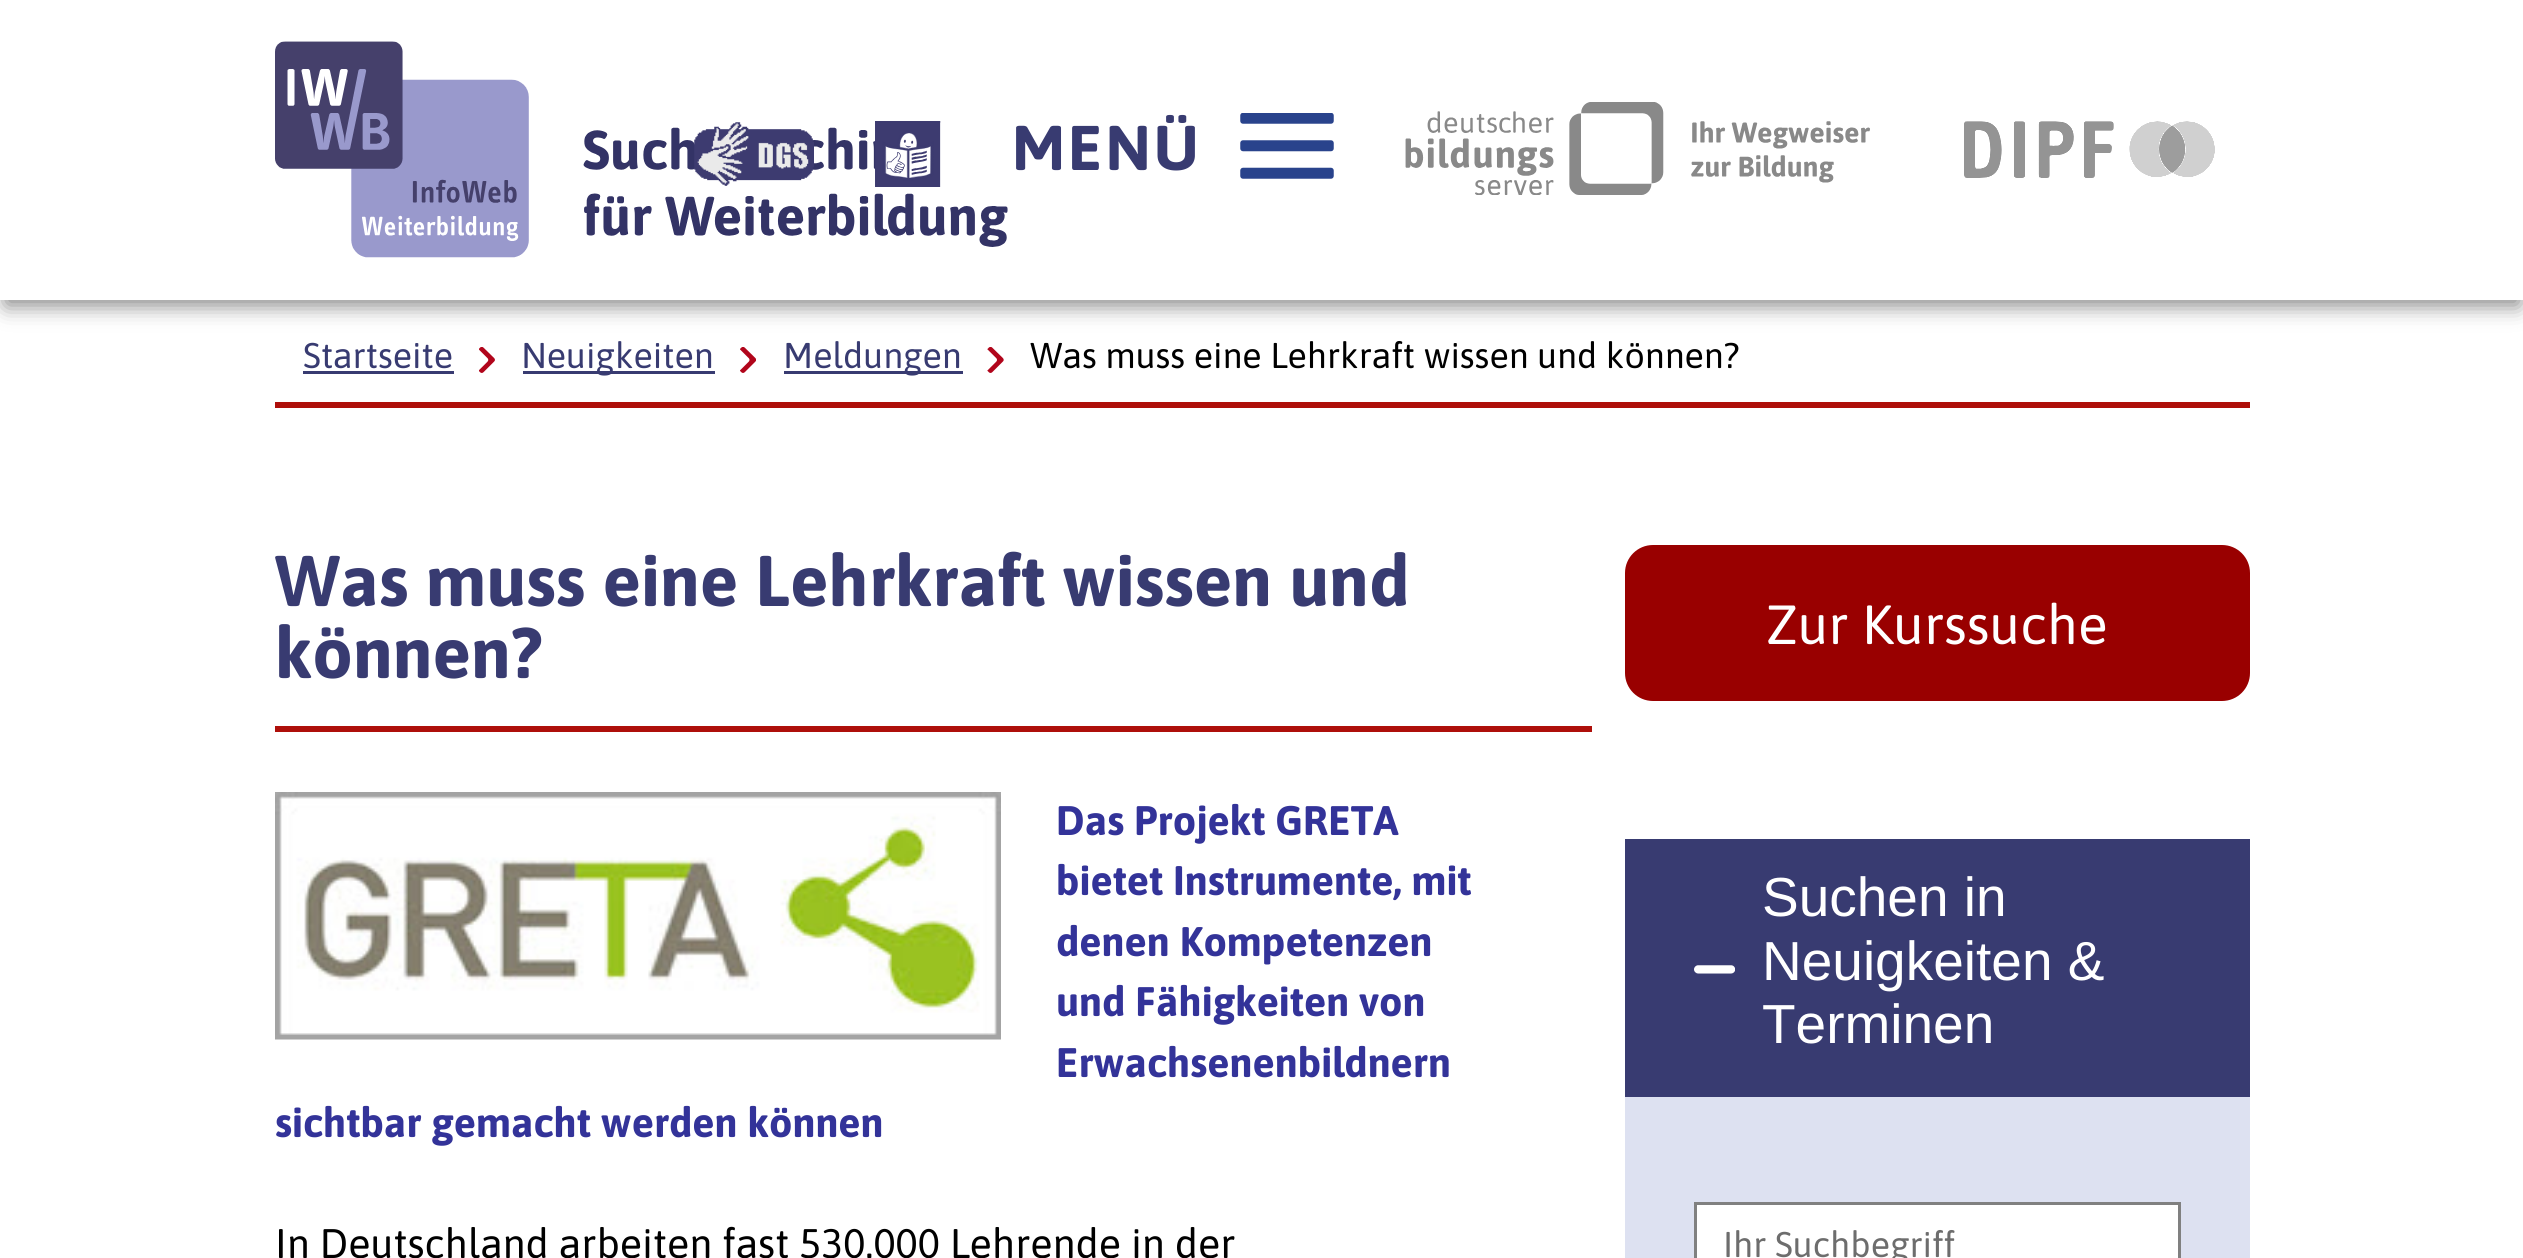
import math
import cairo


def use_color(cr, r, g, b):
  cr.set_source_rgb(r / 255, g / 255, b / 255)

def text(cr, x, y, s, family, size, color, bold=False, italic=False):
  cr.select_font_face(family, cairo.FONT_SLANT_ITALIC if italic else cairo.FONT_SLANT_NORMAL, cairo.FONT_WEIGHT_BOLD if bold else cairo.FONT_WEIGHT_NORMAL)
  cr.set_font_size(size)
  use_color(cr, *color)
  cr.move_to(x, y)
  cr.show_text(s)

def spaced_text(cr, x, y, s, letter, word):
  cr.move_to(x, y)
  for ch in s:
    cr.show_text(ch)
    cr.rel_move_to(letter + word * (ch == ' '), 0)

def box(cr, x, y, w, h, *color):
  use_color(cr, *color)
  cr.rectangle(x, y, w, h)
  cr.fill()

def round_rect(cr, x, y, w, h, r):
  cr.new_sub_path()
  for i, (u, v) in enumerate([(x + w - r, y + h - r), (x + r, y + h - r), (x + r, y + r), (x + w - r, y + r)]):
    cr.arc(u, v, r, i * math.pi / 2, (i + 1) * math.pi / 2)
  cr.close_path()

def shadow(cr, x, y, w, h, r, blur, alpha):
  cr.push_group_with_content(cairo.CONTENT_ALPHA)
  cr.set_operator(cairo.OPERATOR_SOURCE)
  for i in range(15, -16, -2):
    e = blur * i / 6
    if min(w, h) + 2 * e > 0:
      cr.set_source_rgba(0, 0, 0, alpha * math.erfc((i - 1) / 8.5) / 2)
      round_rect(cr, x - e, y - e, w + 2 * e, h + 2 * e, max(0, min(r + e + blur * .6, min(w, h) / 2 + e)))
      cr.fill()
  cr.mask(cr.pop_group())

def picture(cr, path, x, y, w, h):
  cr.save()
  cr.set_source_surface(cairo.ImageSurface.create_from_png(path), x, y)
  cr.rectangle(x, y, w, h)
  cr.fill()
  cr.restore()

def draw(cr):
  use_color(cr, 255, 255, 255)
  cr.paint()
  use_color(cr, 0, 0, 0)
  shadow(cr, 6, 17, 2513, 288, 0, 11, 0.5)
  box(cr, 0, 0, 2523, 300, 255, 255, 255)
  picture(cr, "img_01.png", 275, 41, 733, 217)
  picture(cr, "img_02.png", 694, 122, 120, 64)
  picture(cr, "img_03.png", 875, 121, 66, 66)
  picture(cr, "img_04.png", 1240, 113, 94, 66)
  picture(cr, "img_05.png", 1405, 102, 465, 93)
  picture(cr, "img_06.png", 1964, 121, 251, 57)
  box(cr, 275, 402, 1975, 6, 174, 15, 10)
  box(cr, 303, 371, 151, 3, 56, 59, 113)
  picture(cr, "img_07.png", 479, 347, 16, 26)
  box(cr, 523, 371, 192, 3, 56, 59, 113)
  picture(cr, "img_08.png", 740, 347, 16, 26)
  box(cr, 784, 371, 179, 3, 56, 59, 113)
  picture(cr, "img_09.png", 987, 347, 17, 26)
  box(cr, 275, 726, 1317, 6, 174, 15, 10)
  picture(cr, "img_10.png", 275, 792, 726, 248)
  use_color(cr, 153, 0, 0)
  round_rect(cr, 1628, 548, 619, 150, 25)
  cr.fill_preserve()
  cr.set_line_width(6)
  cr.stroke()
  box(cr, 1625, 839, 625, 258, 56, 59, 113)
  picture(cr, "img_11.png", 1694, 965, 41, 9)
  box(cr, 1625, 1097, 625, 161, 221, 225, 241)
  use_color(cr, 255, 255, 255)
  cr.rectangle(1695.5, 1203.5, 484, 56)
  cr.fill_preserve()
  use_color(cr, 128, 128, 128)
  cr.set_line_width(3)
  cr.stroke()
  cr.select_font_face("Asap", cairo.FONT_SLANT_NORMAL, cairo.FONT_WEIGHT_BOLD)
  cr.set_font_size(63)
  use_color(cr, 56, 59, 113)
  spaced_text(cr, 1012, 170, "MENÜ", 3, 0)
  text(cr, 303, 368, "Startseite", "Asap", 35.75, (56, 59, 113))
  text(cr, 521, 368, "Neuigkeiten", "Asap", 35.75, (56, 59, 113))
  text(cr, 783, 368, "Meldungen", "Asap", 35.75, (56, 59, 113))
  text(cr, 1030, 368, "Was muss eine Lehrkraft wissen und können?", "Asap", 35.75, (0, 0, 0))
  text(cr, 275, 606, "Was muss eine Lehrkraft wissen und", "Asap", 71.5, (56, 59, 113), bold=True)
  text(cr, 275, 678, "können?", "Asap", 71.5, (56, 59, 113), bold=True)
  text(cr, 1056, 835, "Das Projekt GRETA", "Asap", 41.25, (51, 51, 153), bold=True)
  text(cr, 1056, 895, "bietet Instrumente, mit", "Asap", 41.25, (51, 51, 153), bold=True)
  text(cr, 1056, 956, "denen Kompetenzen", "Asap", 41.25, (51, 51, 153), bold=True)
  text(cr, 1056, 1016, "und Fähigkeiten von", "Asap", 41.25, (51, 51, 153), bold=True)
  text(cr, 1056, 1077, "Erwachsenenbildnern", "Asap", 41.25, (51, 51, 153), bold=True)
  text(cr, 275, 1137, "sichtbar gemacht werden können", "Asap", 41.25, (51, 51, 153), bold=True)
  text(cr, 275, 1258, "In Deutschland arbeiten fast 530.000 Lehrende in der", "Asap", 41.25, (0, 0, 0))
  text(cr, 1766, 644, "Zur Kurssuche", "Asap", 55, (255, 255, 255))
  text(cr, 1762, 916, "Suchen in", "Liberation Sans", 55, (255, 255, 255))
  text(cr, 1762, 980, "Neuigkeiten &", "Liberation Sans", 55, (255, 255, 255))
  text(cr, 1762, 1043, "Terminen", "Liberation Sans", 55, (255, 255, 255))
  text(cr, 1723, 1257, "Ihr Suchbegriff", "Asap", 35.75, (109, 109, 109))


surface = cairo.ImageSurface(cairo.FORMAT_RGB24, 2523, 1258)
cr = cairo.Context(surface)
options = cairo.FontOptions()
options.set_hint_metrics(cairo.HINT_METRICS_OFF)
options.set_hint_style(cairo.HINT_STYLE_NONE)
cr.set_font_options(options)
cr.set_miter_limit(4)
draw(cr)
surface.write_to_png("out.png")
